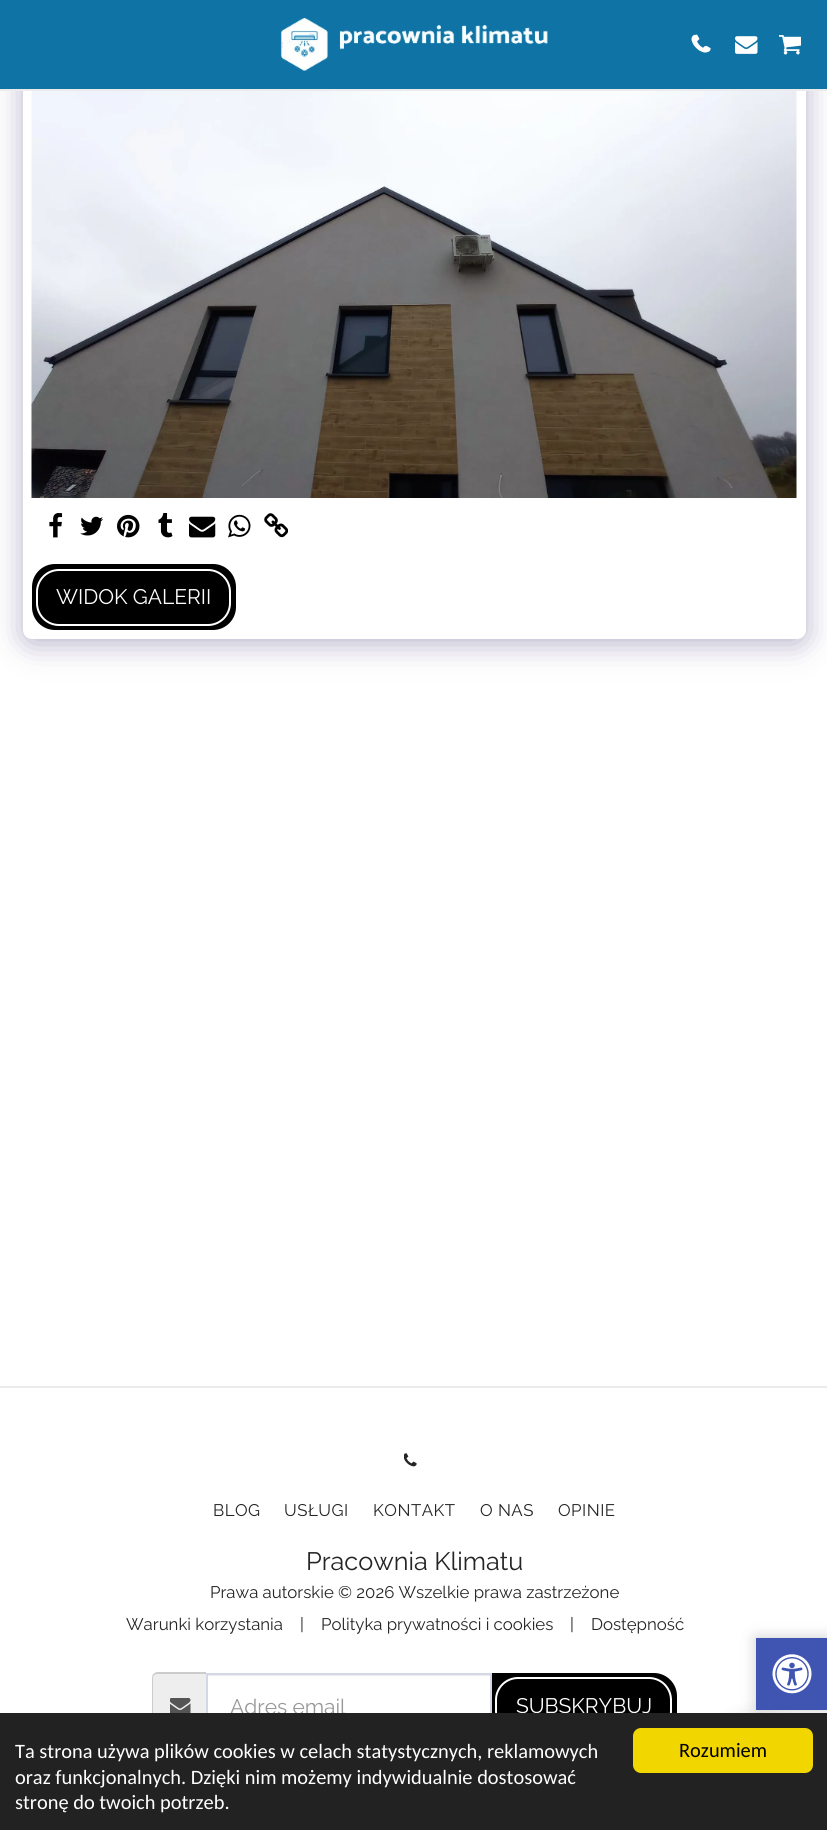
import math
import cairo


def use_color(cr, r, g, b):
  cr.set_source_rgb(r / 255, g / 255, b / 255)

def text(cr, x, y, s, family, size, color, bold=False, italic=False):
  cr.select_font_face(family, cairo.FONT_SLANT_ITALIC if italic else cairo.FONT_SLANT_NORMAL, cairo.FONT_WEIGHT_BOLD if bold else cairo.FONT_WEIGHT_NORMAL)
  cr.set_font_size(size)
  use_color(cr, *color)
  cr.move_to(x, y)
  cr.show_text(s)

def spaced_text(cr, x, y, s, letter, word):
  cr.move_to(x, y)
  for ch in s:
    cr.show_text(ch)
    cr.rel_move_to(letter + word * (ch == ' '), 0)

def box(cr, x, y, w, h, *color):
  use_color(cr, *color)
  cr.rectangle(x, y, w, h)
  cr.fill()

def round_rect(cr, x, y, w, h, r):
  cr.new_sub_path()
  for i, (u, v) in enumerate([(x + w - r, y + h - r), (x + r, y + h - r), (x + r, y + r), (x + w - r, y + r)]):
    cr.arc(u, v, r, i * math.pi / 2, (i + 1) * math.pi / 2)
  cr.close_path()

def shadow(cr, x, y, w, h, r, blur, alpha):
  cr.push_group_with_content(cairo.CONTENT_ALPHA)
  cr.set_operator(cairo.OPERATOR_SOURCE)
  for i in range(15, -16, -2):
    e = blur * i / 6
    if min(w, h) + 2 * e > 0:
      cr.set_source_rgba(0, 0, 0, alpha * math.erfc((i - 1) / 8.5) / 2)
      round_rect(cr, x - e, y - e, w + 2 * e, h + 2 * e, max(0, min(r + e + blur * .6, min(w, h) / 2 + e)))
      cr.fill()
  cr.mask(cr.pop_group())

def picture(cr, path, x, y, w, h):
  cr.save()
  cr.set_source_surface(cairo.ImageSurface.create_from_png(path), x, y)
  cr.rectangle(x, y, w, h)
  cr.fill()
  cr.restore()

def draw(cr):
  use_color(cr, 255, 255, 255)
  cr.paint()
  use_color(cr, 77, 63, 122)
  shadow(cr, 23, 63, 783, 581, 9, 15, 0.4)
  use_color(cr, 255, 255, 255)
  round_rect(cr, 23, 59, 783, 580, 9)
  cr.fill()
  box(cr, 0, 0, 827, 89, 15, 115, 165)
  box(cr, 0, 89, 827, 2, 235, 235, 235)
  picture(cr, "img_01.png", 280, 18, 268, 53)
  picture(cr, "img_02.png", 695, 34, 16, 19)
  picture(cr, "img_03.png", 691, 34, 18, 19)
  picture(cr, "img_04.png", 735, 36, 23, 18)
  picture(cr, "img_05.png", 779, 35, 22, 20)
  picture(cr, "img_06.png", 31, 91, 766, 407)
  picture(cr, "img_07.png", 49, 513, 14, 25)
  picture(cr, "img_08.png", 80, 516, 24, 20)
  picture(cr, "img_09.png", 117, 514, 23, 24)
  picture(cr, "img_10.png", 158, 513, 15, 25)
  picture(cr, "img_11.png", 189, 516, 27, 22)
  picture(cr, "img_12.png", 228, 514, 23, 24)
  picture(cr, "img_13.png", 264, 513, 24, 25)
  use_color(cr, 0, 0, 0)
  round_rect(cr, 33, 565, 202, 64, 22)
  cr.fill_preserve()
  cr.stroke()
  round_rect(cr, 37, 570, 193, 55, 22)
  use_color(cr, 255, 255, 255)
  cr.stroke()
  box(cr, 0, 1386, 827, 2, 235, 235, 235)
  picture(cr, "img_14.png", 404, 1453, 13, 14)
  use_color(cr, 238, 238, 238)
  cr.new_path()
  cr.move_to(158, 1674)
  cr.line_to(206, 1674)
  cr.line_to(206, 1737)
  cr.line_to(158, 1737)
  cr.curve_to(155, 1737, 153, 1735, 153, 1732)
  cr.line_to(153, 1679)
  cr.curve_to(153, 1676, 155, 1674, 158, 1674)
  cr.close_path()
  cr.fill()
  use_color(cr, 204, 204, 204)
  cr.set_fill_rule(cairo.FILL_RULE_EVEN_ODD)
  cr.new_path()
  cr.move_to(158, 1672)
  cr.line_to(206, 1672)
  cr.line_to(206, 1738)
  cr.line_to(158, 1738)
  cr.curve_to(154, 1738, 152, 1736, 152, 1732)
  cr.line_to(152, 1678)
  cr.curve_to(152, 1675, 154, 1672, 158, 1672)
  cr.close_path()
  cr.move_to(158, 1674)
  cr.line_to(206, 1674)
  cr.line_to(206, 1737)
  cr.line_to(158, 1737)
  cr.curve_to(155, 1737, 153, 1735, 153, 1732)
  cr.line_to(153, 1678)
  cr.curve_to(153, 1676, 155, 1674, 158, 1674)
  cr.close_path()
  cr.fill()
  picture(cr, "img_15.png", 170, 1698, 21, 15)
  box(cr, 207, 1675, 284, 1, 236, 236, 236)
  use_color(cr, 0, 0, 0)
  cr.new_path()
  cr.move_to(492, 1674)
  cr.line_to(654, 1674)
  cr.curve_to(666, 1674, 676, 1684, 676, 1696)
  cr.line_to(676, 1716)
  cr.curve_to(676, 1728, 666, 1738, 654, 1738)
  cr.line_to(492, 1738)
  cr.close_path()
  cr.fill_preserve()
  cr.stroke()
  cr.rectangle(207, 1674, 284, 64)
  use_color(cr, 212, 215, 229)
  cr.stroke()
  round_rect(cr, 496, 1678, 175, 55, 22)
  use_color(cr, 255, 255, 255)
  cr.stroke()
  use_color(cr, 0, 0, 0)
  shadow(cr, 716, 1725, 82, 83, 41, 11, 0.35)
  shadow(cr, 756, 1638, 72, 72, 0, 7.5, 0.2)
  box(cr, 756, 1638, 71, 72, 64, 84, 178)
  picture(cr, "img_16.png", 772, 1654, 40, 40)
  text(cr, 56, 604, "WIDOK GALERII", "Raleway", 21, (255, 255, 255))
  cr.set_font_size(16.8)
  use_color(cr, 37, 37, 37)
  spaced_text(cr, 213, 1516, "BLOG", 0.5, 0)
  spaced_text(cr, 284, 1516, "USŁUGI", 0.5, 0)
  spaced_text(cr, 373, 1516, "KONTAKT", 0.5, 0)
  spaced_text(cr, 480, 1516, "O NAS", 0.5, 0)
  spaced_text(cr, 558, 1516, "OPINIE", 0.5, 0)
  text(cr, 306, 1570, "Pracownia Klimatu", "Raleway", 25.25, (37, 37, 37))
  text(cr, 210, 1598, "Prawa autorskie © 2026 Wszelkie prawa zastrzeżone", "Raleway", 16.8, (37, 37, 37))
  text(cr, 126, 1630, "Warunki korzystania", "Raleway", 16.8, (37, 37, 37))
  text(cr, 300, 1630, "|", "Raleway", 16.8, (37, 37, 37))
  text(cr, 321, 1630, "Polityka prywatności i cookies", "Raleway", 16.8, (37, 37, 37))
  text(cr, 570, 1630, "|", "Raleway", 16.8, (37, 37, 37))
  text(cr, 591, 1630, "Dostępność", "Raleway", 16.8, (37, 37, 37))
  text(cr, 230, 1714, "Adres email", "Raleway", 21, (153, 153, 153))
  text(cr, 516, 1713, "SUBSKRYBUJ", "Raleway", 21, (255, 255, 255))
  box(cr, 0, 1713, 827, 117, 34, 34, 34)
  text(cr, 15, 1758, "Ta strona używa plików cookies w celach statystycznych, reklamowych", "Carlito", 20.4, (255, 255, 255))
  text(cr, 15, 1784, "oraz funkcjonalnych. Dzięki nim możemy indywidualnie dostosować", "Carlito", 20.4, (255, 255, 255))
  text(cr, 15, 1809, "stronę do twoich potrzeb.", "Carlito", 20.4, (255, 255, 255))
  use_color(cr, 241, 214, 0)
  round_rect(cr, 633, 1728, 180, 45, 8)
  cr.fill()
  text(cr, 679, 1757, "Rozumiem", "Carlito", 20.4, (0, 0, 0))


surface = cairo.ImageSurface(cairo.FORMAT_RGB24, 827, 1830)
cr = cairo.Context(surface)
options = cairo.FontOptions()
options.set_hint_metrics(cairo.HINT_METRICS_OFF)
options.set_hint_style(cairo.HINT_STYLE_NONE)
cr.set_font_options(options)
cr.set_miter_limit(4)
draw(cr)
surface.write_to_png("out.png")
